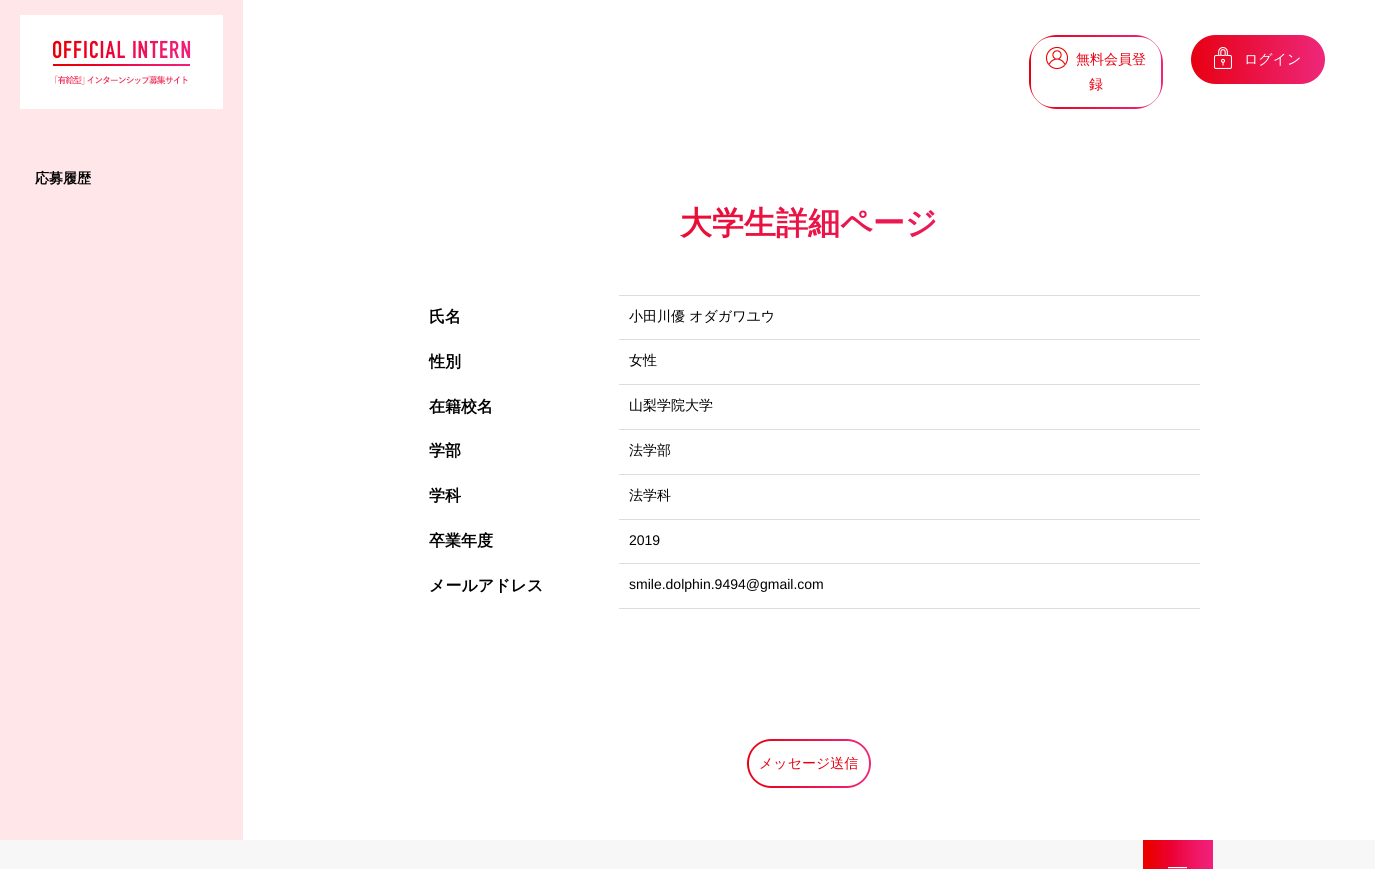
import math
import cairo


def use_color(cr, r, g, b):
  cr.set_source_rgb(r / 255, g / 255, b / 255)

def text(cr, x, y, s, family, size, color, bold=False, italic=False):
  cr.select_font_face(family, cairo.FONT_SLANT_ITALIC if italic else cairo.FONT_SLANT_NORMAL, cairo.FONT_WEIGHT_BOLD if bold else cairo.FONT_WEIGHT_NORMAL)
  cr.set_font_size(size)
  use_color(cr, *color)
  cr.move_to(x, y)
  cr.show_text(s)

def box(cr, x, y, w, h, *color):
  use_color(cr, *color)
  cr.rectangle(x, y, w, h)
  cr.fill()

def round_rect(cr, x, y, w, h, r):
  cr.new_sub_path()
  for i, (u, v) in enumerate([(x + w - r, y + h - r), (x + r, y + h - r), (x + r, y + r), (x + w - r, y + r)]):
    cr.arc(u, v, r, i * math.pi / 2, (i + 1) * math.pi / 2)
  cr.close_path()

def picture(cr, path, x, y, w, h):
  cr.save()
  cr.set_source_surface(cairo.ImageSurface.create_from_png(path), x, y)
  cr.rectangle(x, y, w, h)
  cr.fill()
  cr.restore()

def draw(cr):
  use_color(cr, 247, 247, 247)
  cr.paint()
  box(cr, 243, 0, 1132, 840, 255, 255, 255)
  box(cr, 0, 0, 243, 840, 255, 231, 233)
  picture(cr, "img_01.png", 20, 15, 203, 94)
  gradient = cairo.LinearGradient(1029, 72, 1163, 72)
  gradient.add_color_stop_rgba(0, 0.906, 0, 0.071, 1)
  gradient.add_color_stop_rgba(1, 0.933, 0.153, 0.478, 1)
  cr.set_source(gradient)
  round_rect(cr, 1029, 35, 134, 74, 28)
  cr.fill()
  use_color(cr, 255, 255, 255)
  round_rect(cr, 1031, 37, 130, 70, 22)
  cr.fill()
  picture(cr, "img_02.png", 1046, 47, 22, 22)
  gradient = cairo.LinearGradient(1191, 60, 1325, 59)
  gradient.add_color_stop_rgba(0, 0.906, 0, 0.071, 1)
  gradient.add_color_stop_rgba(1, 0.933, 0.153, 0.478, 1)
  cr.set_source(gradient)
  round_rect(cr, 1191, 35, 134, 49, 24.5)
  cr.fill()
  picture(cr, "img_03.png", 1214, 47, 18, 22)
  box(cr, 619, 295, 581, 1, 221, 221, 221)
  box(cr, 619, 339, 581, 1, 221, 221, 221)
  box(cr, 619, 384, 581, 1, 221, 221, 221)
  box(cr, 619, 429, 581, 1, 221, 221, 221)
  box(cr, 619, 474, 581, 1, 221, 221, 221)
  box(cr, 619, 519, 581, 1, 221, 221, 221)
  box(cr, 619, 563, 581, 1, 221, 221, 221)
  box(cr, 619, 608, 581, 1, 221, 221, 221)
  gradient = cairo.LinearGradient(747, 764, 871, 764)
  gradient.add_color_stop_rgba(0, 0.906, 0, 0.071, 1)
  gradient.add_color_stop_rgba(1, 0.933, 0.153, 0.478, 1)
  cr.set_source(gradient)
  round_rect(cr, 747, 739, 124, 49, 24.5)
  cr.fill()
  use_color(cr, 255, 255, 255)
  round_rect(cr, 749, 741, 120, 45, 22)
  cr.fill()
  picture(cr, "img_04.png", 1143, 840, 70, 29)
  text(cr, 1076, 64, "無料会員登", "WenQuanYi Zen Hei Medium", 14, (231, 0, 18))
  text(cr, 1089, 89, "録", "WenQuanYi Zen Hei Medium", 14, (231, 0, 18))
  text(cr, 1244, 64, "ログイン", "WenQuanYi Zen Hei Medium", 14, (255, 255, 255))
  text(cr, 35, 183, "応募履歴", "WenQuanYi Zen Hei", 14, (0, 0, 0), bold=True)
  cr.set_font_size(32)
  gradient = cairo.LinearGradient(419, 224, 1199, 224)
  gradient.add_color_stop_rgba(0, 0.906, 0, 0.071, 1)
  gradient.add_color_stop_rgba(1, 0.933, 0.153, 0.478, 1)
  cr.set_source(gradient)
  cr.move_to(680, 234)
  cr.show_text("大学生詳細ページ")
  text(cr, 429, 322, "氏名", "WenQuanYi Zen Hei", 16, (0, 0, 0), bold=True)
  text(cr, 629, 321, "小田川優 オダガワユウ", "WenQuanYi Zen Hei Medium", 14, (0, 0, 0))
  text(cr, 429, 367, "性別", "WenQuanYi Zen Hei", 16, (0, 0, 0), bold=True)
  text(cr, 629, 365, "女性", "WenQuanYi Zen Hei Medium", 14, (0, 0, 0))
  text(cr, 429, 412, "在籍校名", "WenQuanYi Zen Hei", 16, (0, 0, 0), bold=True)
  text(cr, 629, 410, "山梨学院大学", "WenQuanYi Zen Hei Medium", 14, (0, 0, 0))
  text(cr, 429, 456, "学部", "WenQuanYi Zen Hei", 16, (0, 0, 0), bold=True)
  text(cr, 629, 455, "法学部", "WenQuanYi Zen Hei Medium", 14, (0, 0, 0))
  text(cr, 429, 501, "学科", "WenQuanYi Zen Hei", 16, (0, 0, 0), bold=True)
  text(cr, 629, 500, "法学科", "WenQuanYi Zen Hei Medium", 14, (0, 0, 0))
  text(cr, 429, 546, "卒業年度", "WenQuanYi Zen Hei", 16, (0, 0, 0), bold=True)
  text(cr, 629, 545, "2019", "Liberation Sans", 14, (0, 0, 0))
  text(cr, 429, 591, "メールアドレス", "WenQuanYi Zen Hei", 16, (0, 0, 0), bold=True)
  text(cr, 629, 589, "smile.dolphin.9494@gmail.com", "Liberation Sans", 14, (0, 0, 0))
  text(cr, 759, 768, "メッセージ送信", "WenQuanYi Zen Hei Medium", 14, (231, 0, 18))


surface = cairo.ImageSurface(cairo.FORMAT_RGB24, 1375, 869)
cr = cairo.Context(surface)
options = cairo.FontOptions()
options.set_hint_metrics(cairo.HINT_METRICS_OFF)
options.set_hint_style(cairo.HINT_STYLE_NONE)
cr.set_font_options(options)
cr.set_miter_limit(4)
draw(cr)
surface.write_to_png("out.png")
